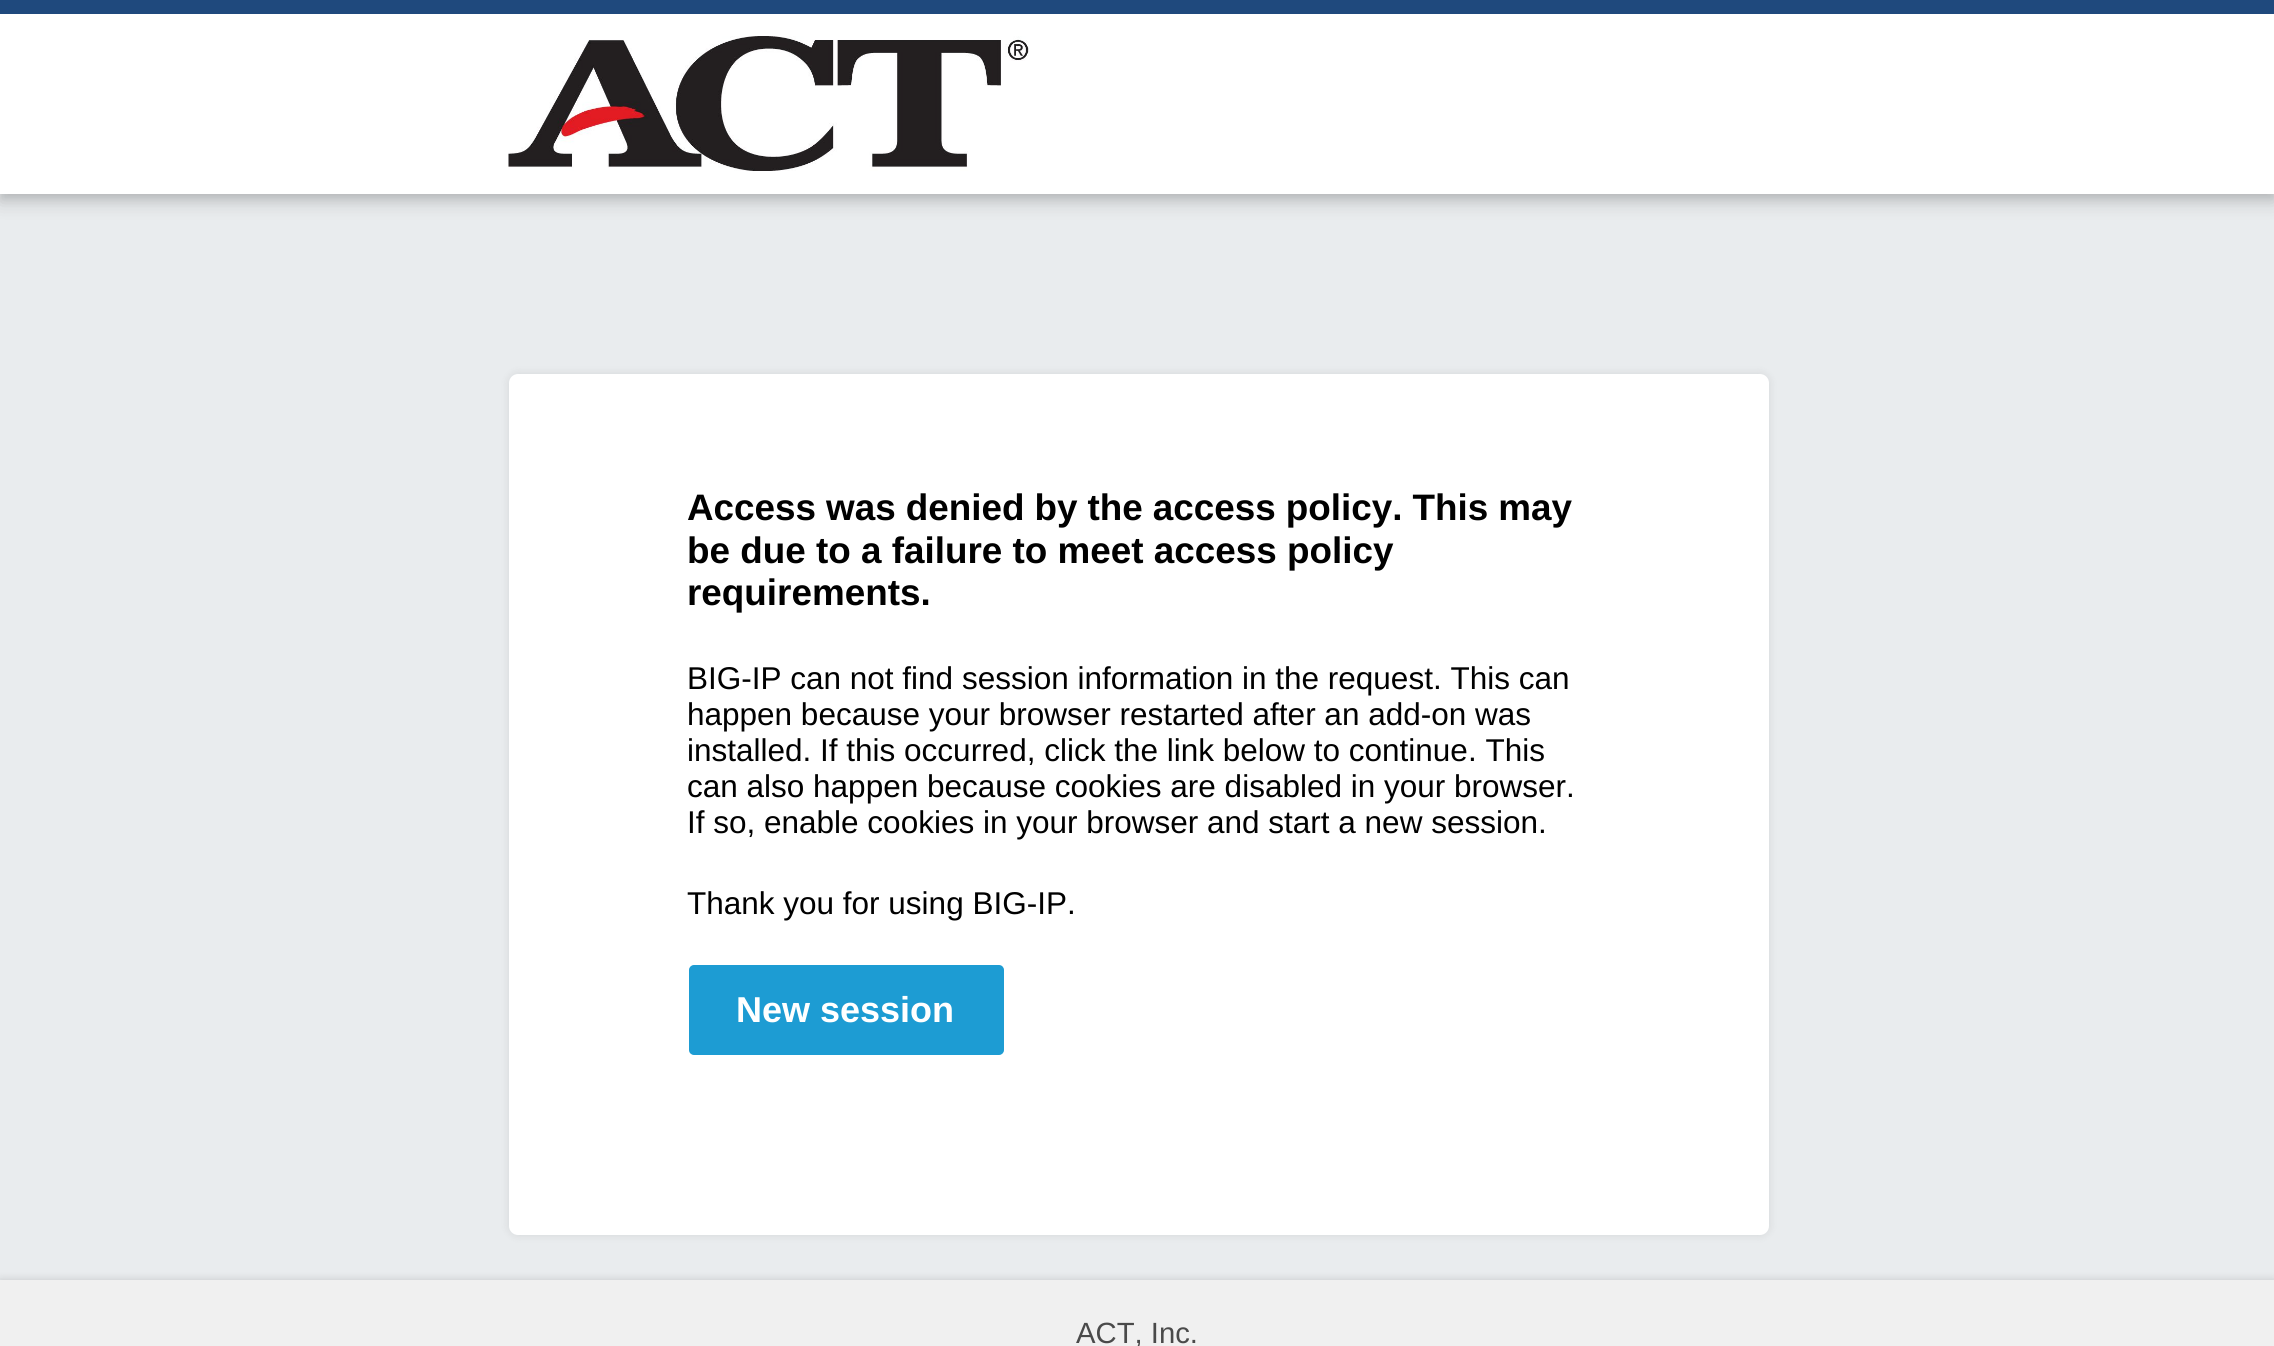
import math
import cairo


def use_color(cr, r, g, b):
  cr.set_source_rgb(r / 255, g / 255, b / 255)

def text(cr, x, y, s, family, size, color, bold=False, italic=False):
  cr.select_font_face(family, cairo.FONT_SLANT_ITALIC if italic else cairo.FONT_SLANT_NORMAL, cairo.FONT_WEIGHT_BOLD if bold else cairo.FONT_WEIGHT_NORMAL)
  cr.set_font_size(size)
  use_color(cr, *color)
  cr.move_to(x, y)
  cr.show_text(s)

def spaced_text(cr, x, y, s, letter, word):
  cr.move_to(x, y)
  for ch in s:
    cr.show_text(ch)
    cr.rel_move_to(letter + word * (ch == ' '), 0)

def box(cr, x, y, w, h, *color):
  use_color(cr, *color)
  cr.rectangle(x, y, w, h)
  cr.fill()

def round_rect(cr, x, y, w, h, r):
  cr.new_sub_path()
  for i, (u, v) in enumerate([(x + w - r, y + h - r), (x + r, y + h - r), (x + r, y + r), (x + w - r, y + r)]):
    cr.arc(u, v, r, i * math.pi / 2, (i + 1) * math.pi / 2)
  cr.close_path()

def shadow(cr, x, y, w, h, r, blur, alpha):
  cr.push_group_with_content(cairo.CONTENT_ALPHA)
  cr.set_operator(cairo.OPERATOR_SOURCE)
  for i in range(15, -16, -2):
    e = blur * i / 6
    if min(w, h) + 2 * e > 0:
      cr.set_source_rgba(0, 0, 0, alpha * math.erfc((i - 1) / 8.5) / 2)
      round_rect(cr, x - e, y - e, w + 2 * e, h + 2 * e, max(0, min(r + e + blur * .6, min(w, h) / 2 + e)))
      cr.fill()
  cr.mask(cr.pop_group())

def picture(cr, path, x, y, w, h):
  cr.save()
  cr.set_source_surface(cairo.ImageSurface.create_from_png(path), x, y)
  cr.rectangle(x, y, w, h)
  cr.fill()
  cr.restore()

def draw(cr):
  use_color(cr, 233, 236, 238)
  cr.paint()
  use_color(cr, 0, 0, 0)
  shadow(cr, 0, 9, 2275, 194, 0, 9, 0.15)
  shadow(cr, 0, 5, 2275, 193, 0, 4.5, 0.1)
  box(cr, 0, 14, 2274, 180, 255, 255, 255)
  box(cr, 0, 0, 2274, 14, 31, 73, 125)
  picture(cr, "img_01.png", 508, 36, 521, 135)
  use_color(cr, 0, 0, 0)
  shadow(cr, 509, 374, 1260, 861, 9, 4.5, 0.1)
  use_color(cr, 255, 255, 255)
  round_rect(cr, 509, 374, 1260, 861, 9)
  cr.fill()
  use_color(cr, 29, 156, 211)
  round_rect(cr, 690, 966, 313, 88, 4)
  cr.fill_preserve()
  cr.stroke()
  use_color(cr, 0, 0, 0)
  shadow(cr, 0, 1280, 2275, 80, 0, 4.5, 0.15)
  box(cr, 0, 1280, 2274, 66, 240, 240, 240)
  cr.select_font_face("Liberation Sans", cairo.FONT_SLANT_NORMAL, cairo.FONT_WEIGHT_BOLD)
  cr.set_font_size(36.85)
  use_color(cr, 0, 0, 0)
  spaced_text(cr, 687, 520, "Access was denied by the access policy. This may", 0, -0.25)
  text(cr, 687, 563, "be due to a failure to meet access policy", "Liberation Sans", 36.85, (0, 0, 0), bold=True)
  text(cr, 687, 605, "requirements.", "Liberation Sans", 36.85, (0, 0, 0), bold=True)
  text(cr, 687, 689, "BIG-IP can not find session information in the request. This can", "Liberation Sans", 31.5, (0, 0, 0))
  text(cr, 687, 725, "happen because your browser restarted after an add-on was", "Liberation Sans", 31.5, (0, 0, 0))
  text(cr, 687, 761, "installed. If this occurred, click the link below to continue. This", "Liberation Sans", 31.5, (0, 0, 0))
  text(cr, 687, 797, "can also happen because cookies are disabled in your browser.", "Liberation Sans", 31.5, (0, 0, 0))
  text(cr, 687, 833, "If so, enable cookies in your browser and start a new session.", "Liberation Sans", 31.5, (0, 0, 0))
  text(cr, 687, 914, "Thank you for using BIG-IP.", "Liberation Sans", 31.5, (0, 0, 0))
  text(cr, 736, 1022, "New session", "Liberation Sans", 36, (255, 255, 255), bold=True)
  text(cr, 1076, 1343, "ACT, Inc.", "Liberation Sans", 29.25, (74, 74, 74))


surface = cairo.ImageSurface(cairo.FORMAT_RGB24, 2274, 1346)
cr = cairo.Context(surface)
options = cairo.FontOptions()
options.set_hint_metrics(cairo.HINT_METRICS_OFF)
options.set_hint_style(cairo.HINT_STYLE_NONE)
cr.set_font_options(options)
cr.set_miter_limit(4)
draw(cr)
surface.write_to_png("out.png")
